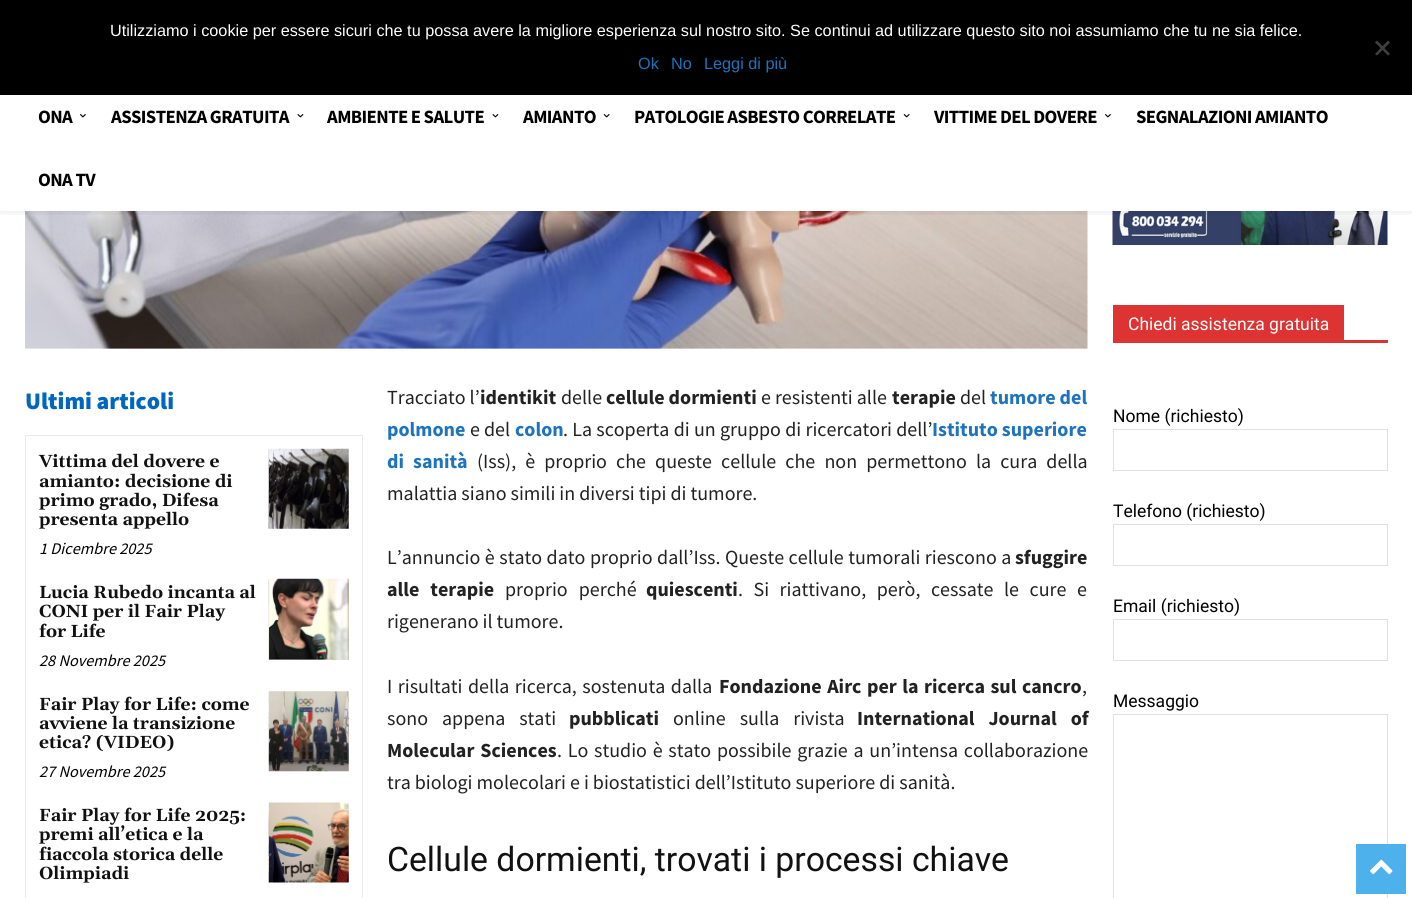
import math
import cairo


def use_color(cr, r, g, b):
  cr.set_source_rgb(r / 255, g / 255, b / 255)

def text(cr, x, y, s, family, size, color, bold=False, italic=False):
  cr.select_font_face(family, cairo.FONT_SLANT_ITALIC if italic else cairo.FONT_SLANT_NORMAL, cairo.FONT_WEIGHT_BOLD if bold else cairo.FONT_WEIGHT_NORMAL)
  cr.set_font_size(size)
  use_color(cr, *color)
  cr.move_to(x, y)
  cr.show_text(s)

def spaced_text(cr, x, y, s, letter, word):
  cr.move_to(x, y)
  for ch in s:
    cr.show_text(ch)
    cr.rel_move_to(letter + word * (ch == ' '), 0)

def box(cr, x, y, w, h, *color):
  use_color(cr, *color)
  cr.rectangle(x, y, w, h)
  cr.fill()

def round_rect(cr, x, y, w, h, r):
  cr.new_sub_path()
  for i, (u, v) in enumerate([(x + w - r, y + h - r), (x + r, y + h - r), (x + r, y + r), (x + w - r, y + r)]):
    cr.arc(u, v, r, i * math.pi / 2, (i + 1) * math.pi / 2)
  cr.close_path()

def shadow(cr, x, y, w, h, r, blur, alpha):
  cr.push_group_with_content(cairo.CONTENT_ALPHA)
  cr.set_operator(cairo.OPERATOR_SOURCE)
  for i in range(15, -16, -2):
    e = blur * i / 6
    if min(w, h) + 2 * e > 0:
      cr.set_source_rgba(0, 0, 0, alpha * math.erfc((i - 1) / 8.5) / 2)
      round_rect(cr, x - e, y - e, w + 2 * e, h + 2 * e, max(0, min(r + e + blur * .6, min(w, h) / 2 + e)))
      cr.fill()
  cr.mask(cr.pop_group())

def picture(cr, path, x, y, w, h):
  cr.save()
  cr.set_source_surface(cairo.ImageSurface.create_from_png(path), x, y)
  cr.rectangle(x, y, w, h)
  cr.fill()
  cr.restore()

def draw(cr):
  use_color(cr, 255, 255, 255)
  cr.paint()
  picture(cr, "img_04.png", 25, 211, 1063, 138)
  picture(cr, "img_09.png", 1112, 211, 276, 34)
  cr.save()
  cr.rectangle(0, 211, 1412, 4)
  cr.clip()
  use_color(cr, 0, 0, 0)
  shadow(cr, 0, 3, 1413, 211, 0, 2.5, 0.06)
  cr.restore()
  box(cr, 0, 0, 1412, 95, 0, 0, 0)
  use_color(cr, 64, 64, 64)
  cr.new_path()
  cr.move_to(1388, 40.5)
  cr.line_to(1390, 42.5)
  cr.line_to(1377, 55.5)
  cr.line_to(1375, 54)
  cr.close_path()
  cr.fill()
  cr.new_path()
  cr.move_to(1375, 42.5)
  cr.line_to(1377, 40.5)
  cr.line_to(1390, 54)
  cr.line_to(1388, 55.5)
  cr.close_path()
  cr.fill()
  picture(cr, "img_01.png", 80, 114, 6, 4)
  picture(cr, "img_02.png", 297, 114, 7, 4)
  picture(cr, "img_02.png", 492, 114, 7, 4)
  picture(cr, "img_03.png", 603, 114, 7, 4)
  picture(cr, "img_03.png", 903, 114, 7, 4)
  picture(cr, "img_01.png", 1105, 114, 6, 4)
  cr.rectangle(25.5, 435.5, 337, 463)
  use_color(cr, 234, 234, 234)
  cr.set_line_width(1)
  cr.stroke()
  picture(cr, "img_05.png", 268, 448, 81, 81)
  picture(cr, "img_06.png", 268, 578, 81, 82)
  picture(cr, "img_07.png", 268, 691, 81, 81)
  picture(cr, "img_08.png", 268, 802, 81, 81)
  box(cr, 1113, 340, 275, 3, 221, 51, 51)
  box(cr, 1113, 305, 231, 35, 221, 51, 51)
  cr.rectangle(1113.5, 429.5, 274, 41)
  use_color(cr, 225, 225, 225)
  cr.stroke()
  cr.rectangle(1113.5, 524.5, 274, 41)
  cr.stroke()
  cr.rectangle(1113.5, 619.5, 274, 41)
  cr.stroke()
  cr.rectangle(1113.5, 714.5, 274, 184)
  cr.stroke()
  box(cr, 1356, 844, 50, 50, 77, 178, 236)
  picture(cr, "img_10.png", 1370, 859, 23, 16)
  text(cr, 110, 36, "Utilizziamo i cookie per essere sicuri che tu possa avere la migliore esperienza sul nostro sito. Se continui ad utilizzare questo sito noi assumiamo che tu ne sia felice.", "Liberation Sans", 16.25, (255, 255, 255))
  text(cr, 638, 69, "Ok", "Liberation Sans", 16.25, (30, 115, 190))
  text(cr, 671, 69, "No", "Liberation Sans", 16.25, (30, 115, 190))
  text(cr, 704, 69, "Leggi di più", "Liberation Sans", 16.25, (30, 115, 190))
  cr.select_font_face("Source Sans Pro", cairo.FONT_SLANT_NORMAL, cairo.FONT_WEIGHT_BOLD)
  cr.set_font_size(18.75)
  use_color(cr, 0, 0, 0)
  spaced_text(cr, 38, 123, "ONA", -0.6, 0)
  spaced_text(cr, 111, 123, "ASSISTENZA GRATUITA", -0.6, 0)
  spaced_text(cr, 327, 123, "AMBIENTE E SALUTE", -0.6, 0)
  spaced_text(cr, 523, 123, "AMIANTO", -0.6, 0)
  spaced_text(cr, 634, 123, "PATOLOGIE ASBESTO CORRELATE", -0.6, 0)
  spaced_text(cr, 934, 123, "VITTIME DEL DOVERE", -0.6, 0)
  spaced_text(cr, 1136, 123, "SEGNALAZIONI AMIANTO", -0.6, 0)
  spaced_text(cr, 38, 186, "ONA TV", -0.6, 0)
  text(cr, 25, 409, "Ultimi articoli", "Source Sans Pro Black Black", 23.75, (0, 102, 191))
  text(cr, 39, 467, "Vittima del dovere e", "Gelasio", 17.5, (17, 17, 17), bold=True)
  text(cr, 39, 487, "amianto: decisione di", "Gelasio", 17.5, (17, 17, 17), bold=True)
  text(cr, 39, 506, "primo grado, Difesa", "Gelasio", 17.5, (17, 17, 17), bold=True)
  text(cr, 39, 525, "presenta appello", "Gelasio", 17.5, (17, 17, 17), bold=True)
  text(cr, 39, 554, "1 Dicembre 2025", "Source Sans Pro", 16.25, (0, 0, 0), italic=True)
  text(cr, 39, 598, "Lucia Rubedo incanta al", "Gelasio", 17.5, (17, 17, 17), bold=True)
  text(cr, 39, 617, "CONI per il Fair Play", "Gelasio", 17.5, (17, 17, 17), bold=True)
  text(cr, 39, 637, "for Life", "Gelasio", 17.5, (17, 17, 17), bold=True)
  text(cr, 39, 666, "28 Novembre 2025", "Source Sans Pro", 16.25, (0, 0, 0), italic=True)
  text(cr, 39, 710, "Fair Play for Life: come", "Gelasio", 17.5, (17, 17, 17), bold=True)
  text(cr, 39, 729, "avviene la transizione", "Gelasio", 17.5, (17, 17, 17), bold=True)
  text(cr, 39, 748, "etica? (VIDEO)", "Gelasio", 17.5, (17, 17, 17), bold=True)
  text(cr, 39, 777, "27 Novembre 2025", "Source Sans Pro", 16.25, (0, 0, 0), italic=True)
  text(cr, 39, 821, "Fair Play for Life 2025:", "Gelasio", 17.5, (17, 17, 17), bold=True)
  text(cr, 39, 840, "premi all’etica e la", "Gelasio", 17.5, (17, 17, 17), bold=True)
  text(cr, 39, 860, "fiaccola storica delle", "Gelasio", 17.5, (17, 17, 17), bold=True)
  text(cr, 39, 879, "Olimpiadi", "Gelasio", 17.5, (17, 17, 17), bold=True)
  text(cr, 387, 404, "Tracciato l’", "Source Sans Pro", 20, (34, 34, 34))
  text(cr, 480, 404, "identikit", "Source Sans Pro", 20, (34, 34, 34), bold=True)
  text(cr, 561, 404, "delle", "Source Sans Pro", 20, (34, 34, 34))
  text(cr, 606, 404, "cellule dormienti", "Source Sans Pro", 20, (34, 34, 34), bold=True)
  text(cr, 761, 404, "e resistenti alle", "Source Sans Pro", 20, (34, 34, 34))
  text(cr, 892, 404, "terapie", "Source Sans Pro", 20, (34, 34, 34), bold=True)
  text(cr, 960, 404, "del", "Source Sans Pro", 20, (34, 34, 34))
  text(cr, 990, 404, "tumore del", "Source Sans Pro", 20, (30, 115, 190), bold=True)
  text(cr, 387, 436, "polmone", "Source Sans Pro", 20, (30, 115, 190), bold=True)
  text(cr, 470, 436, "e del", "Source Sans Pro", 20, (34, 34, 34))
  text(cr, 515, 436, "colon", "Source Sans Pro", 20, (30, 115, 190), bold=True)
  cr.select_font_face("Source Sans Pro")
  use_color(cr, 34, 34, 34)
  spaced_text(cr, 563, 436, ". La scoperta di un gruppo di ricercatori dell’", 0, 0.25)
  text(cr, 932, 436, "Istituto superiore", "Source Sans Pro", 20, (30, 115, 190), bold=True)
  spaced_text(cr, 387, 468, "di sanità", 0, 5.1)
  cr.select_font_face("Source Sans Pro")
  use_color(cr, 34, 34, 34)
  spaced_text(cr, 477, 468, "(Iss), è proprio che queste cellule che non permettono la cura della", 0, 5.1)
  text(cr, 387, 500, "malattia siano simili in diversi tipi di tumore.", "Source Sans Pro", 20, (34, 34, 34))
  spaced_text(cr, 387, 564, "L’annuncio è stato dato proprio dall’Iss. Queste cellule tumorali riescono a", 0, 0.5)
  text(cr, 1015, 564, "sfuggire", "Source Sans Pro", 20, (34, 34, 34), bold=True)
  spaced_text(cr, 387, 596, "alle terapie", 0, 7)
  cr.select_font_face("Source Sans Pro")
  spaced_text(cr, 505, 596, "proprio perché", 0, 7)
  text(cr, 646, 596, "quiescenti", "Source Sans Pro", 20, (34, 34, 34), bold=True)
  cr.select_font_face("Source Sans Pro")
  spaced_text(cr, 738, 596, ". Si riattivano, però, cessate le cure e", 0, 6.5)
  text(cr, 387, 628, "rigenerano il tumore.", "Source Sans Pro", 20, (34, 34, 34))
  spaced_text(cr, 387, 693, "I risultati della ricerca, sostenuta dalla", 0, 1.5)
  cr.select_font_face("Source Sans Pro", cairo.FONT_SLANT_NORMAL, cairo.FONT_WEIGHT_BOLD)
  spaced_text(cr, 719, 693, "Fondazione Airc per la ricerca sul cancro", 0, 1.5)
  text(cr, 1082, 693, ",", "Source Sans Pro", 20, (34, 34, 34))
  spaced_text(cr, 387, 725, "sono appena stati", 0, 10)
  text(cr, 569, 725, "pubblicati", "Source Sans Pro", 20, (34, 34, 34), bold=True)
  cr.select_font_face("Source Sans Pro")
  spaced_text(cr, 673, 725, "online sulla rivista", 0, 10)
  cr.select_font_face("Source Sans Pro", cairo.FONT_SLANT_NORMAL, cairo.FONT_WEIGHT_BOLD)
  spaced_text(cr, 857, 725, "International Journal of", 0, 10)
  spaced_text(cr, 387, 757, "Molecular Sciences", 0, 2)
  cr.select_font_face("Source Sans Pro")
  spaced_text(cr, 557, 757, ". Lo studio è stato possibile grazie a un’intensa collaborazione", 0, 1.75)
  text(cr, 387, 789, "tra biologi molecolari e i biostatistici dell’Istituto superiore di sanità.", "Source Sans Pro", 20, (34, 34, 34))
  text(cr, 387, 871, "Cellule dormienti, trovati i processi chiave", "Roboto", 33.75, (17, 17, 17))
  text(cr, 1128, 330, "Chiedi assistenza gratuita", "Roboto", 17.5, (255, 255, 255))
  text(cr, 1113, 422, "Nome (richiesto)", "Roboto", 17.5, (0, 0, 0))
  text(cr, 1113, 517, "Telefono (richiesto)", "Roboto", 17.5, (0, 0, 0))
  text(cr, 1113, 612, "Email (richiesto)", "Roboto", 17.5, (0, 0, 0))
  text(cr, 1113, 707, "Messaggio", "Roboto", 17.5, (0, 0, 0))


surface = cairo.ImageSurface(cairo.FORMAT_RGB24, 1412, 898)
cr = cairo.Context(surface)
options = cairo.FontOptions()
options.set_hint_metrics(cairo.HINT_METRICS_OFF)
options.set_hint_style(cairo.HINT_STYLE_NONE)
cr.set_font_options(options)
cr.set_miter_limit(4)
draw(cr)
surface.write_to_png("out.png")
